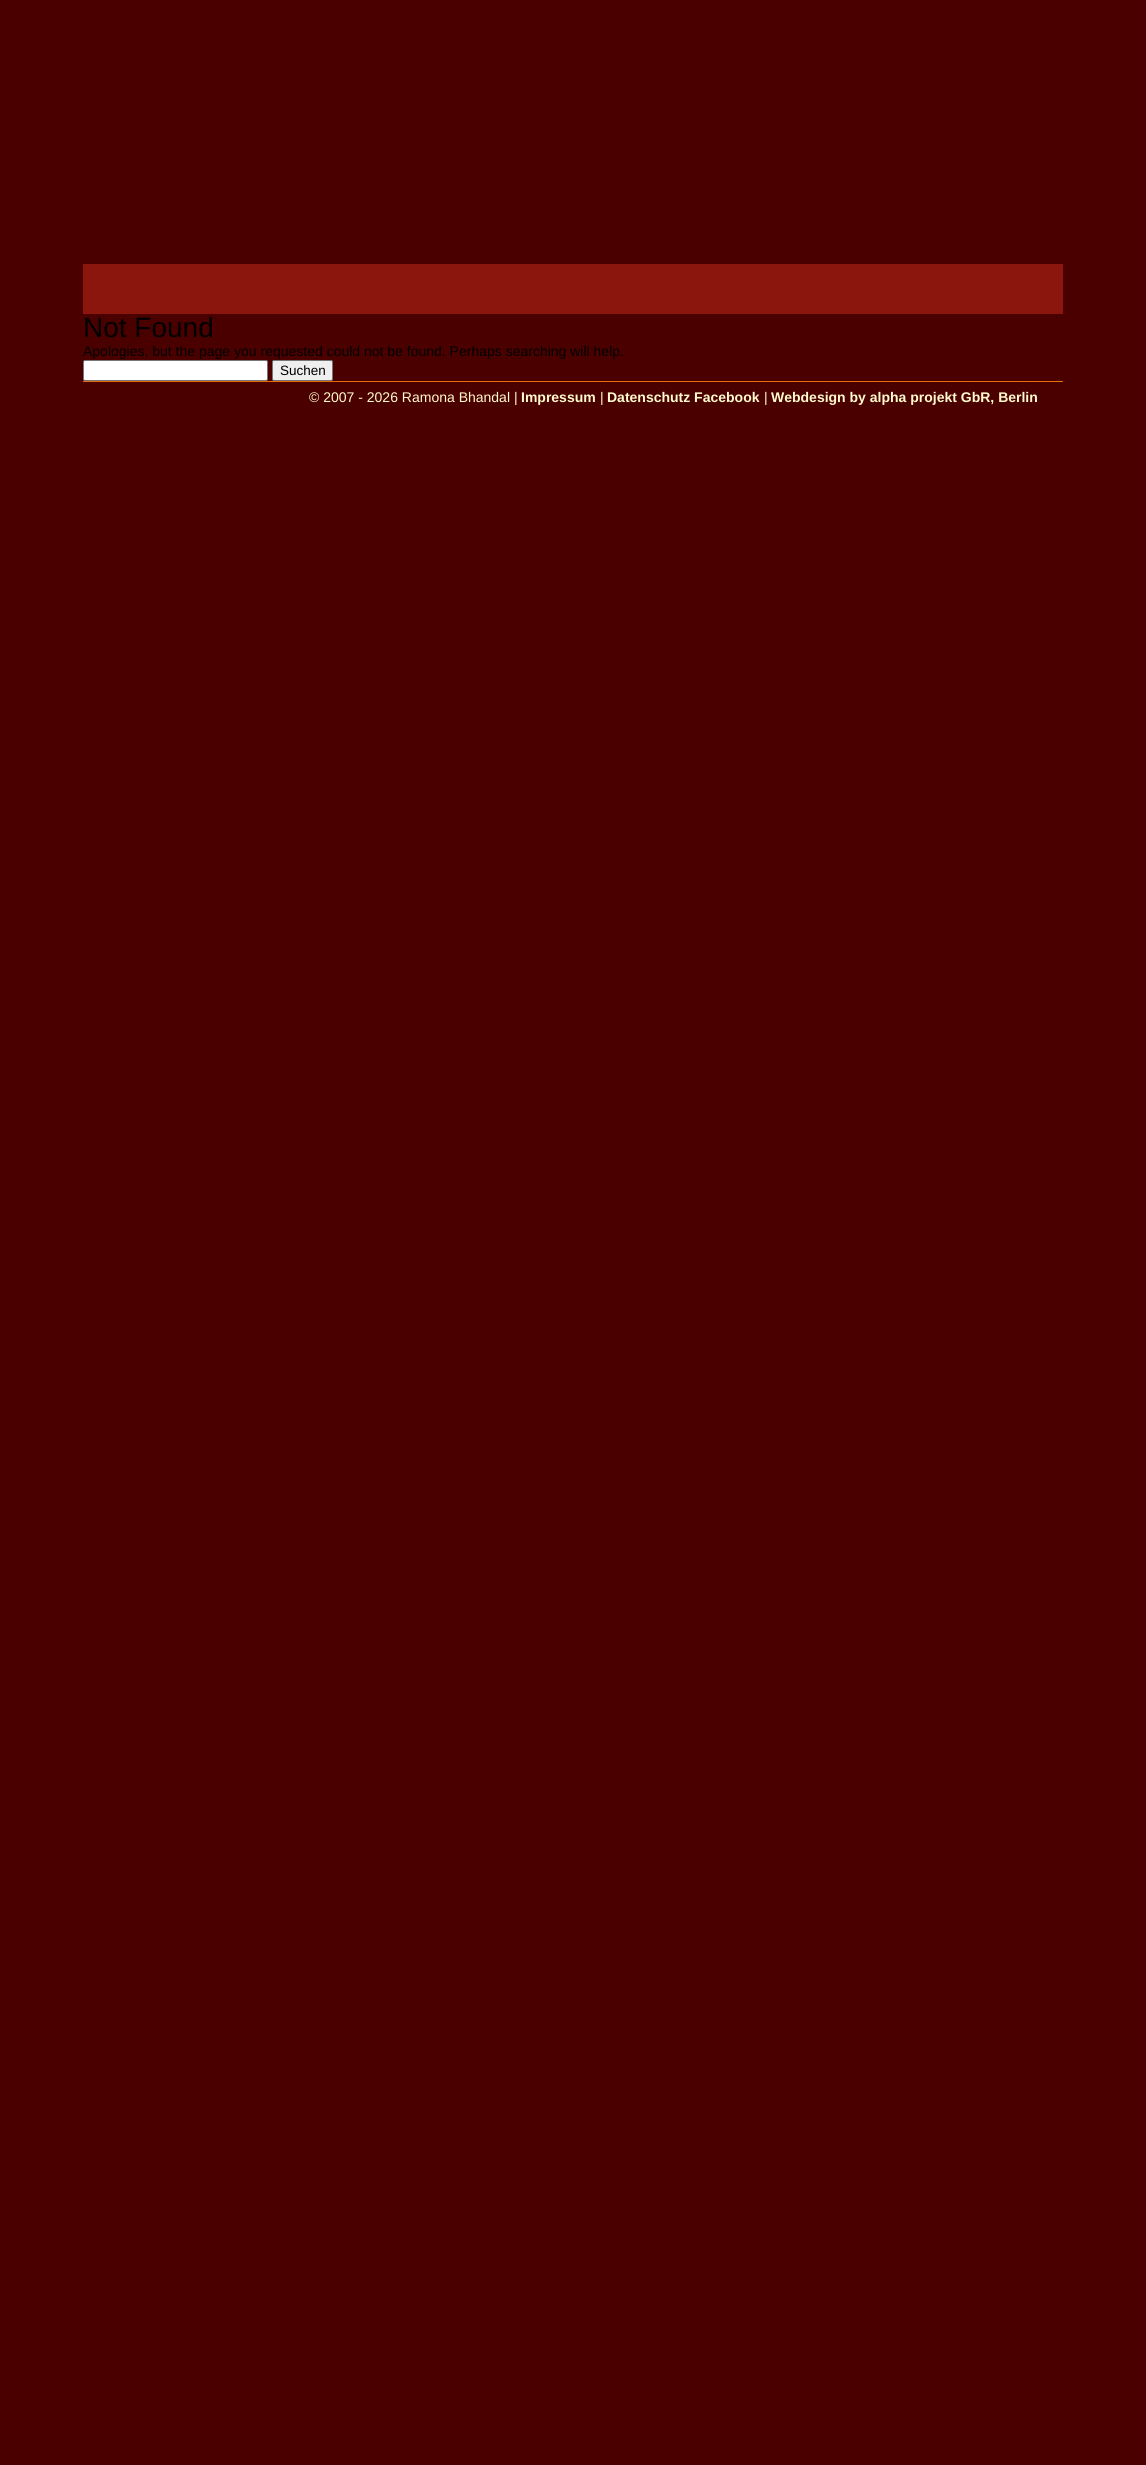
import math
import cairo


def use_color(cr, r, g, b):
  cr.set_source_rgb(r / 255, g / 255, b / 255)

def text(cr, x, y, s, family, size, color, bold=False, italic=False):
  cr.select_font_face(family, cairo.FONT_SLANT_ITALIC if italic else cairo.FONT_SLANT_NORMAL, cairo.FONT_WEIGHT_BOLD if bold else cairo.FONT_WEIGHT_NORMAL)
  cr.set_font_size(size)
  use_color(cr, *color)
  cr.move_to(x, y)
  cr.show_text(s)

def box(cr, x, y, w, h, *color):
  use_color(cr, *color)
  cr.rectangle(x, y, w, h)
  cr.fill()

def round_rect(cr, x, y, w, h, r):
  cr.new_sub_path()
  for i, (u, v) in enumerate([(x + w - r, y + h - r), (x + r, y + h - r), (x + r, y + r), (x + w - r, y + r)]):
    cr.arc(u, v, r, i * math.pi / 2, (i + 1) * math.pi / 2)
  cr.close_path()

def draw(cr):
  use_color(cr, 75, 0, 0)
  cr.paint()
  box(cr, 83, 264, 980, 50, 139, 22, 13)
  use_color(cr, 255, 255, 255)
  round_rect(cr, 83.5, 360.5, 184, 20, 1.5)
  cr.fill_preserve()
  use_color(cr, 118, 118, 118)
  cr.set_line_width(1)
  cr.stroke()
  use_color(cr, 239, 239, 239)
  round_rect(cr, 272.5, 360.5, 60, 20, 1.5)
  cr.fill_preserve()
  use_color(cr, 118, 118, 118)
  cr.stroke()
  box(cr, 83, 381, 980, 1, 228, 108, 11)
  text(cr, 83, 337, "Not Found", "Liberation Sans", 28, (0, 0, 0))
  text(cr, 83, 356, "Apologies, but the page you requested could not be found. Perhaps searching will help.", "Liberation Sans", 14, (0, 0, 0))
  text(cr, 280, 375, "Suchen", "Liberation Sans", 13.5, (0, 0, 0))
  text(cr, 309, 402, "© 2007 - 2026 Ramona Bhandal |", "Liberation Sans", 14, (255, 251, 204))
  text(cr, 521, 402, "Impressum", "Liberation Sans", 14, (255, 251, 204), bold=True)
  text(cr, 600, 402, "|", "Liberation Sans", 14, (255, 251, 204))
  text(cr, 607, 402, "Datenschutz Facebook", "Liberation Sans", 14, (255, 251, 204), bold=True)
  text(cr, 764, 402, "|", "Liberation Sans", 14, (255, 251, 204))
  text(cr, 771, 402, "Webdesign by alpha projekt GbR, Berlin", "Liberation Sans", 14, (255, 251, 204), bold=True)


surface = cairo.ImageSurface(cairo.FORMAT_RGB24, 1146, 2465)
cr = cairo.Context(surface)
options = cairo.FontOptions()
options.set_hint_metrics(cairo.HINT_METRICS_OFF)
options.set_hint_style(cairo.HINT_STYLE_NONE)
cr.set_font_options(options)
cr.set_miter_limit(4)
draw(cr)
surface.write_to_png("out.png")
